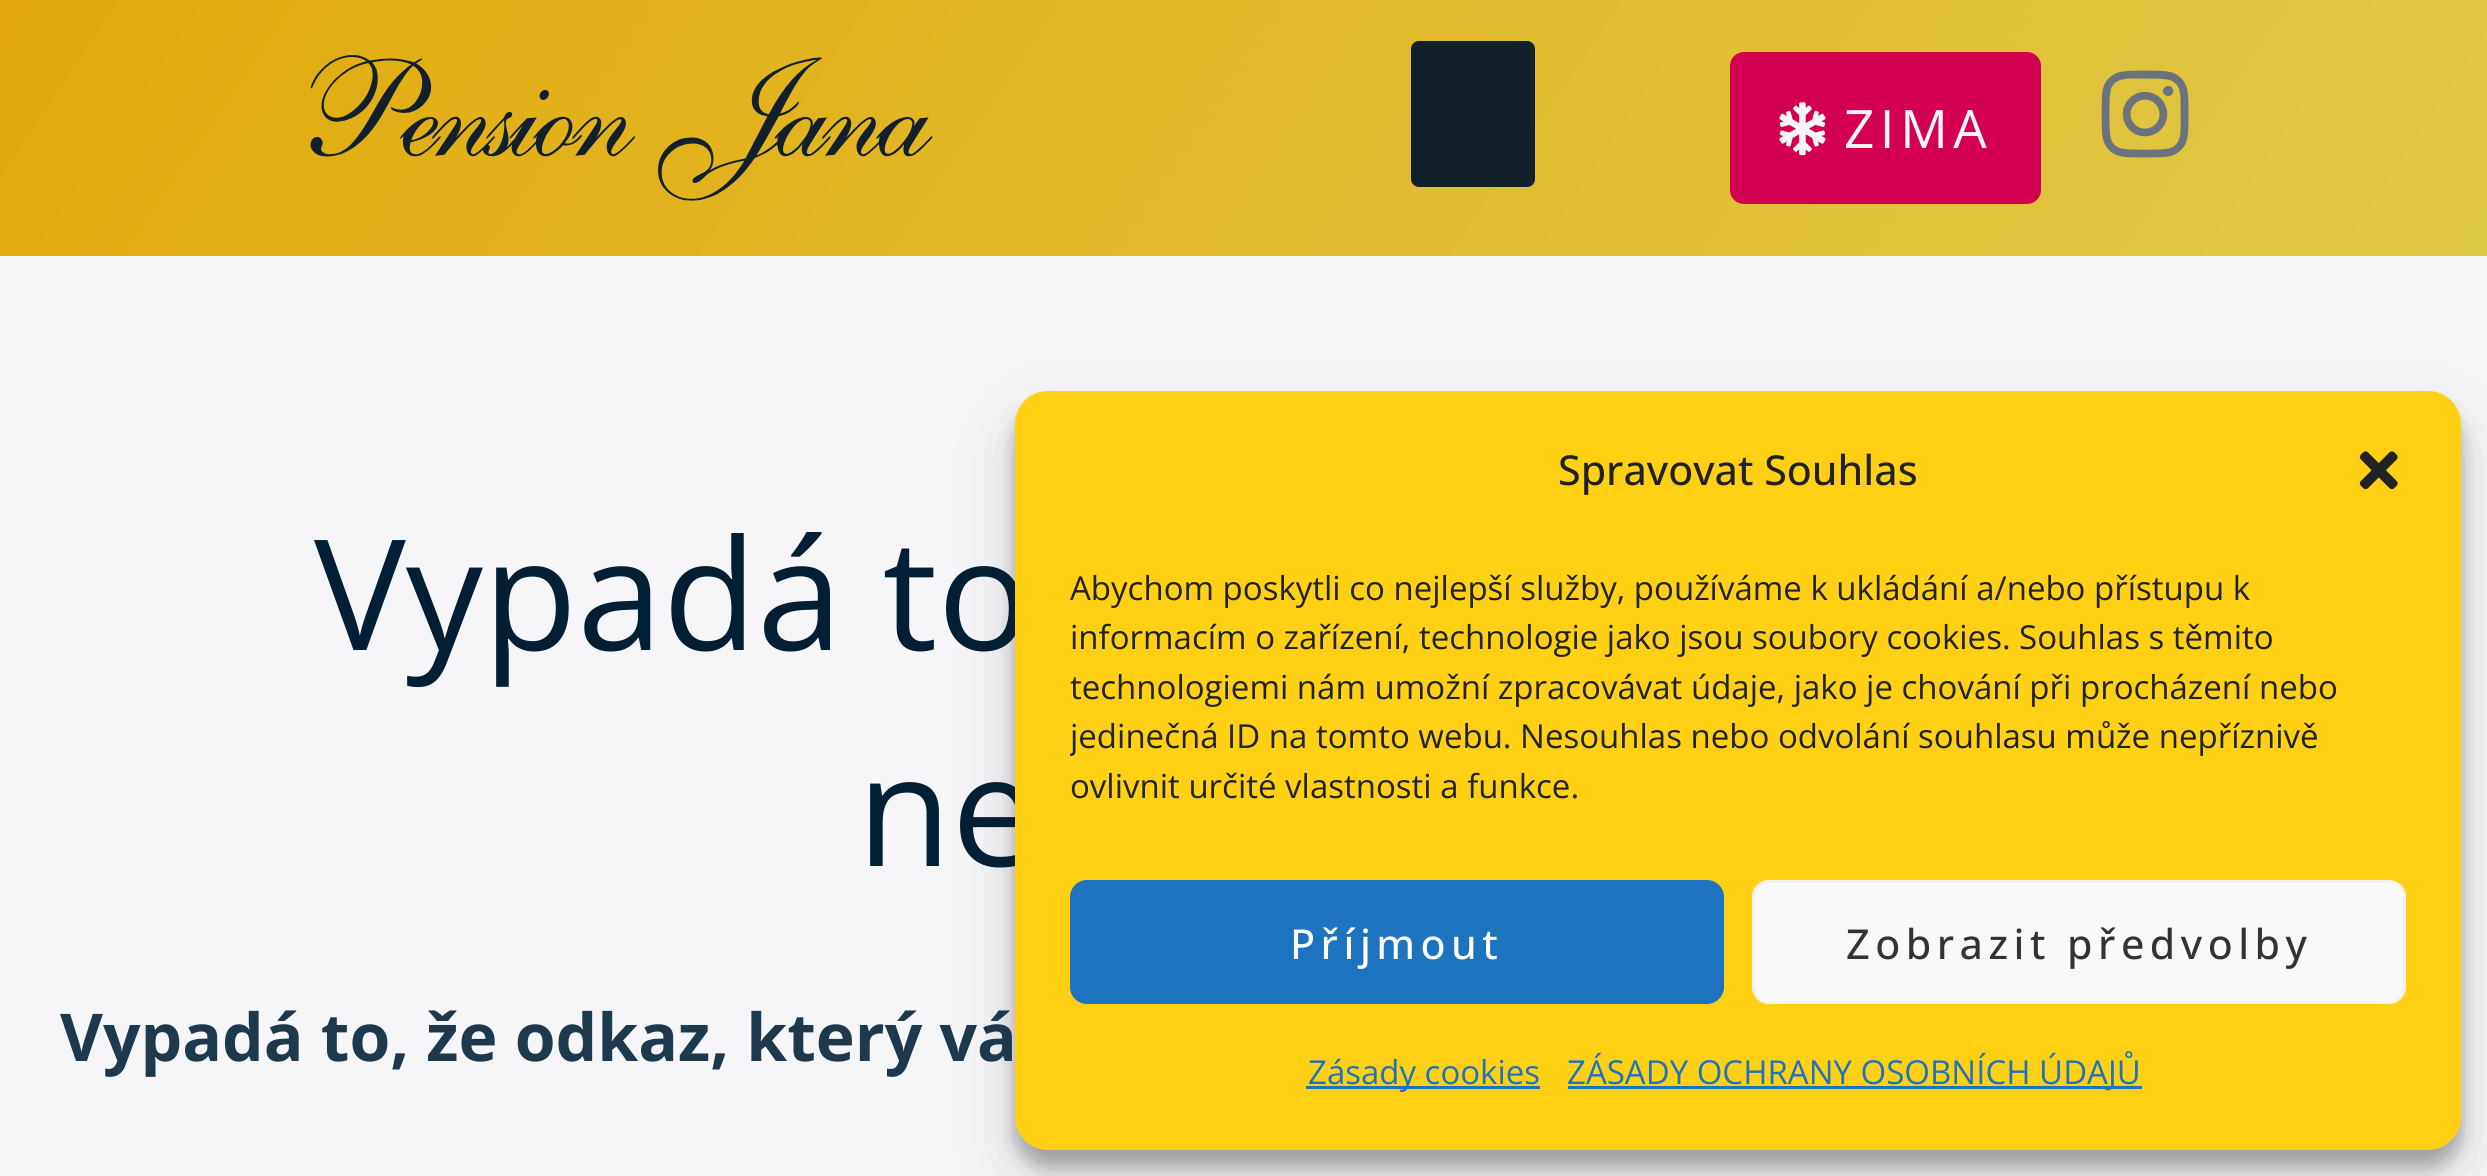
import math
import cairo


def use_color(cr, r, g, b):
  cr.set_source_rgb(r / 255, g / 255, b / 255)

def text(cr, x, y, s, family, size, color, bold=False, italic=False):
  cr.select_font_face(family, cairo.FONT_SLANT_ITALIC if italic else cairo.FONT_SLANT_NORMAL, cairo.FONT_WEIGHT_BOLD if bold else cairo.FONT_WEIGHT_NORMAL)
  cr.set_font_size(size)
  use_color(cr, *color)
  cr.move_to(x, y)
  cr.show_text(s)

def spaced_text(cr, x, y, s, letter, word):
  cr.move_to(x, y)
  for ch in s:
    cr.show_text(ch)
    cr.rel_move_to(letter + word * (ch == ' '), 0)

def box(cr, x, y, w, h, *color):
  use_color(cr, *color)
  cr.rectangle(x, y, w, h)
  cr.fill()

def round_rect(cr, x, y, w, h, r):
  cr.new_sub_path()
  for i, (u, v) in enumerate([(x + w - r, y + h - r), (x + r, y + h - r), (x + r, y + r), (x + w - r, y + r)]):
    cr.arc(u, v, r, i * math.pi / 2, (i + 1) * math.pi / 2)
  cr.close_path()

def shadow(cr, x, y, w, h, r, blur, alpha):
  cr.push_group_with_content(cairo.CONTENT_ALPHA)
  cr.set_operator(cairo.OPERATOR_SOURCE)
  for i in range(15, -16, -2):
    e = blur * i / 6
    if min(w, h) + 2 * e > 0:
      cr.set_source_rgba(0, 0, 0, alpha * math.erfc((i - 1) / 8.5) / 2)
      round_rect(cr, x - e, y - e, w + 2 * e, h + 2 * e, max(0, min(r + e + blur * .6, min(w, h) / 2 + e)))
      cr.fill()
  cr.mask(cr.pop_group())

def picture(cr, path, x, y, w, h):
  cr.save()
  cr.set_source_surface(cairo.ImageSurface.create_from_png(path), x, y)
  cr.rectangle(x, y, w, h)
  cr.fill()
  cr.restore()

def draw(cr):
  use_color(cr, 246, 246, 249)
  cr.paint()
  gradient = cairo.LinearGradient(330, -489, 2159, 745)
  gradient.add_color_stop_rgba(0, 0.89, 0.663, 0.047, 1)
  gradient.add_color_stop_rgba(1, 0.878, 0.788, 0.278, 1)
  cr.set_source(gradient)
  cr.rectangle(0, 0, 2487, 256)
  cr.fill()
  picture(cr, "img_01.png", 310, 55, 623, 146)
  use_color(cr, 17, 32, 42)
  round_rect(cr, 1411, 41, 124, 146, 8)
  cr.fill()
  use_color(cr, 211, 0, 81)
  round_rect(cr, 1730, 52, 311, 152, 14)
  cr.fill()
  picture(cr, "img_02.png", 1779, 102, 47, 54)
  picture(cr, "img_03.png", 2101, 70, 88, 88)
  use_color(cr, 0, 0, 0)
  shadow(cr, 1015, 407, 1446, 759, 33, 8, 0.23)
  shadow(cr, 1015, 418, 1446, 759, 33, 27.5, 0.19)
  cr.select_font_face("Open Sans")
  cr.set_font_size(53)
  use_color(cr, 246, 246, 249)
  spaced_text(cr, 1844, 148, "ZIMA", 5.5, 0)
  text(cr, 314, 650, "Vypadá to", "Open Sans", 154, (2, 31, 51))
  text(cr, 857, 866, "ne", "Open Sans", 154, (2, 31, 51))
  text(cr, 60, 1061, "Vypadá to, že odkaz, který vá", "Open Sans", 66, (29, 57, 75), bold=True)
  use_color(cr, 255, 208, 20)
  round_rect(cr, 1015, 391, 1446, 759, 33)
  cr.fill()
  text(cr, 1558, 485, "Spravovat Souhlas", "Open Sans Medium", 41.25, (34, 34, 34))
  picture(cr, "img_04.png", 2359, 451, 39, 39)
  text(cr, 1070, 600, "Abychom poskytli co nejlepší služby, používáme k ukládání a/nebo přístupu k", "Open Sans", 33, (34, 34, 34))
  text(cr, 1070, 649, "informacím o zařízení, technologie jako jsou soubory cookies. Souhlas s těmito", "Open Sans", 33, (34, 34, 34))
  text(cr, 1070, 699, "technologiemi nám umožní zpracovávat údaje, jako je chování při procházení nebo", "Open Sans", 33, (34, 34, 34))
  cr.save()
  cr.rectangle(1070, 564, 1336, 261)
  cr.clip()
  text(cr, 1070, 748, "jedinečná ID na tomto webu. Nesouhlas nebo odvolání souhlasu může nepříznivě", "Open Sans", 33, (34, 34, 34))
  cr.restore()
  text(cr, 1070, 798, "ovlivnit určité vlastnosti a funkce.", "Open Sans", 33, (34, 34, 34))
  use_color(cr, 30, 115, 190)
  round_rect(cr, 1071.5, 881.5, 651, 121, 15.5)
  cr.fill_preserve()
  cr.set_line_width(3)
  cr.stroke()
  cr.select_font_face("Open Sans Medium")
  cr.set_font_size(41.25)
  use_color(cr, 255, 255, 255)
  spaced_text(cr, 1290, 959, "Příjmout", 5.5, 0)
  use_color(cr, 249, 249, 249)
  round_rect(cr, 1753.5, 881.5, 651, 121, 15.5)
  cr.fill_preserve()
  use_color(cr, 242, 242, 242)
  cr.stroke()
  use_color(cr, 51, 51, 51)
  spaced_text(cr, 1846, 959, "Zobrazit předvolby", 5.5, 0)
  box(cr, 1306, 1086, 234, 3, 30, 115, 190)
  text(cr, 1308, 1084, "Zásady cookies", "Open Sans", 33, (30, 115, 190))
  box(cr, 1568, 1086, 574, 3, 30, 115, 190)
  text(cr, 1567, 1084, "ZÁSADY OCHRANY OSOBNÍCH ÚDAJŮ", "Open Sans", 33, (30, 115, 190))


surface = cairo.ImageSurface(cairo.FORMAT_RGB24, 2487, 1176)
cr = cairo.Context(surface)
options = cairo.FontOptions()
options.set_hint_metrics(cairo.HINT_METRICS_OFF)
options.set_hint_style(cairo.HINT_STYLE_NONE)
cr.set_font_options(options)
cr.set_miter_limit(4)
draw(cr)
surface.write_to_png("out.png")
